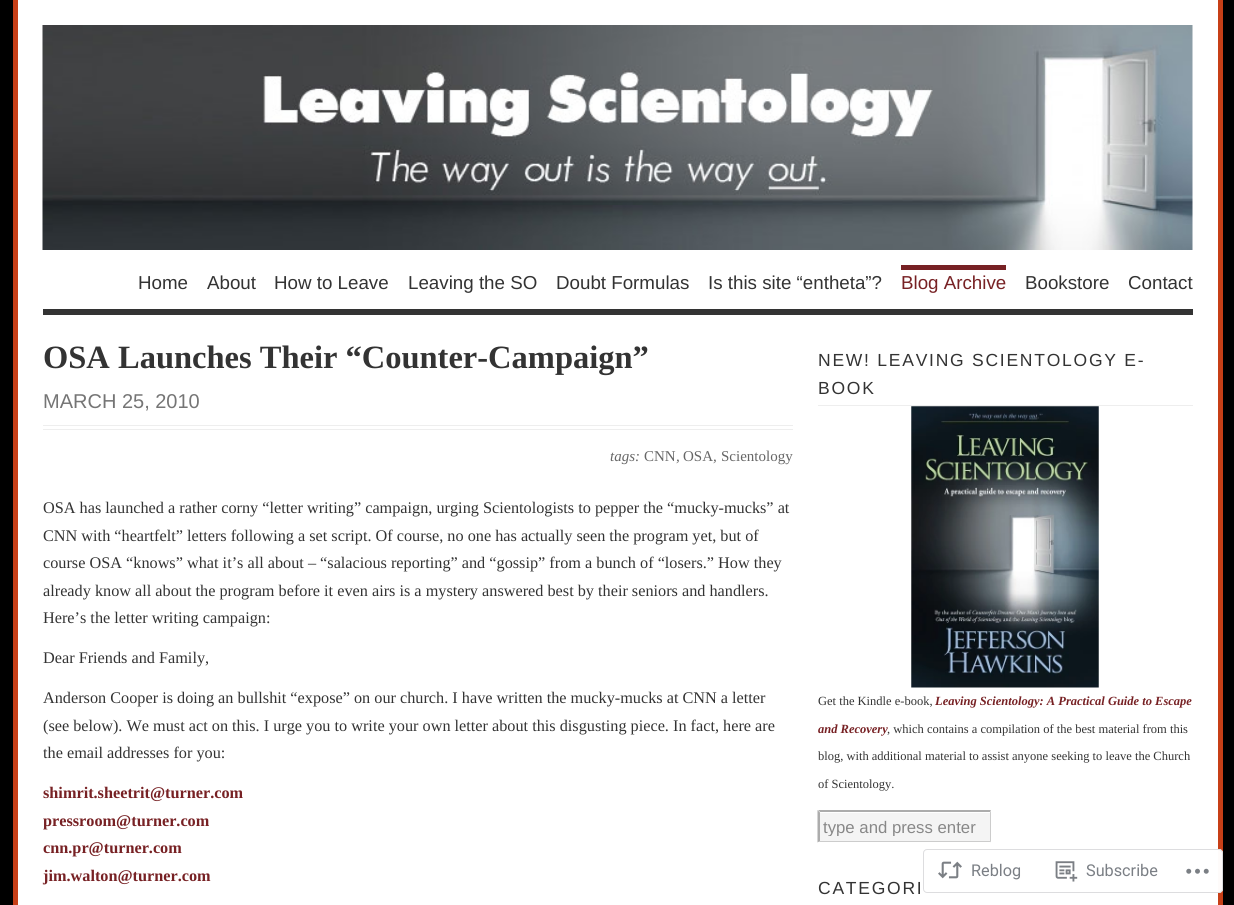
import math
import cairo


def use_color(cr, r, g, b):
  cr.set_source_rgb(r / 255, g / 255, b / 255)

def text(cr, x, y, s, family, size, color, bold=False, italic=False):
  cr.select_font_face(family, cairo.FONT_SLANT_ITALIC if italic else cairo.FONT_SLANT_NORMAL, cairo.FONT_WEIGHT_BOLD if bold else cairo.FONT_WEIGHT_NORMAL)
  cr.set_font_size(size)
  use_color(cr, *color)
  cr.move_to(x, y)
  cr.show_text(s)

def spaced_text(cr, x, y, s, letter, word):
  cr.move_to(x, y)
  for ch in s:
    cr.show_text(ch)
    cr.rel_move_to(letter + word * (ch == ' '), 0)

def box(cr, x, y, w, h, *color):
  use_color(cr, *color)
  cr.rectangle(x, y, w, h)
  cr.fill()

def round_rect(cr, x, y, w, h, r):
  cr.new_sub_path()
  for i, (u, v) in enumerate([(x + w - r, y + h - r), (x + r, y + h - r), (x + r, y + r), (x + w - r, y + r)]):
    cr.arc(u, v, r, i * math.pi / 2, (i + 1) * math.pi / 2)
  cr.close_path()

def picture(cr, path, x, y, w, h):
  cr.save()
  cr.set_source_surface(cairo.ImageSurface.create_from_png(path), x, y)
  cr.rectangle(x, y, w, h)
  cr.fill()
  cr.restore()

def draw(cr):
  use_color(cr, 0, 0, 0)
  cr.paint()
  box(cr, 18, 0, 1200, 905, 255, 255, 255)
  box(cr, 1218, 0, 5, 905, 199, 63, 23)
  box(cr, 13, 0, 5, 905, 199, 63, 23)
  box(cr, 43, 309, 1150, 6, 51, 51, 51)
  picture(cr, "img_01.png", 42, 25, 1151, 225)
  box(cr, 901, 265, 105, 5, 119, 33, 36)
  box(cr, 43, 425, 750, 1, 238, 238, 238)
  box(cr, 43, 429, 750, 1, 238, 238, 238)
  box(cr, 818, 405, 375, 1, 238, 238, 238)
  picture(cr, "img_02.png", 911, 406, 188, 282)
  box(cr, 820, 813, 170, 28, 244, 244, 244)
  use_color(cr, 172, 172, 172)
  cr.new_path()
  cr.move_to(818, 810)
  cr.line_to(991, 810)
  cr.line_to(990, 812)
  cr.line_to(820, 812)
  cr.close_path()
  cr.fill()
  use_color(cr, 204, 204, 204)
  cr.new_path()
  cr.move_to(991, 810)
  cr.line_to(991, 842.5)
  cr.line_to(990, 841)
  cr.line_to(990, 812.5)
  cr.close_path()
  cr.fill()
  cr.new_path()
  cr.move_to(991, 842)
  cr.line_to(818, 842)
  cr.line_to(820, 841)
  cr.line_to(990, 841)
  cr.close_path()
  cr.fill()
  use_color(cr, 172, 172, 172)
  cr.new_path()
  cr.move_to(817.5, 842.5)
  cr.line_to(817.5, 810)
  cr.line_to(820, 812.5)
  cr.line_to(820, 841)
  cr.close_path()
  cr.fill()
  cr.set_source_rgba(1, 1, 1, 0.98)
  round_rect(cr, 923, 849, 300, 44, 4)
  cr.fill()
  round_rect(cr, 923.5, 849.5, 299, 43, 3.5)
  cr.set_source_rgba(0.863, 0.863, 0.871, 0.98)
  cr.set_line_width(1)
  cr.stroke()
  picture(cr, "img_03.png", 938, 861, 24, 18)
  picture(cr, "img_04.png", 1055, 861, 23, 21)
  picture(cr, "img_05.png", 1186, 868, 23, 6)
  text(cr, 138, 289, "Home", "Liberation Sans", 18.75, (51, 51, 51))
  text(cr, 207, 289, "About", "Liberation Sans", 18.75, (51, 51, 51))
  text(cr, 274, 289, "How to Leave", "Liberation Sans", 18.75, (51, 51, 51))
  text(cr, 408, 289, "Leaving the SO", "Liberation Sans", 18.75, (51, 51, 51))
  text(cr, 556, 289, "Doubt Formulas", "Liberation Sans", 18.75, (51, 51, 51))
  text(cr, 708, 289, "Is this site “entheta”?", "Liberation Sans", 18.75, (51, 51, 51))
  text(cr, 901, 289, "Blog Archive", "Liberation Sans", 18.75, (119, 33, 36))
  text(cr, 1025, 289, "Bookstore", "Liberation Sans", 18.75, (51, 51, 51))
  text(cr, 1128, 289, "Contact", "Liberation Sans", 18.75, (51, 51, 51))
  text(cr, 43, 368, "OSA Launches Their “Counter-Campaign”", "Liberation Serif", 32.5, (51, 51, 51), bold=True)
  text(cr, 43, 408, "MARCH 25, 2010", "Liberation Sans", 20, (117, 117, 117))
  text(cr, 610, 461, "tags:", "Liberation Serif", 15, (102, 102, 102), italic=True)
  text(cr, 644, 461, "CNN", "Liberation Serif", 15, (102, 102, 102))
  text(cr, 676, 461, ",", "Liberation Serif", 15, (102, 102, 102), italic=True)
  text(cr, 683, 461, "OSA", "Liberation Serif", 15, (102, 102, 102))
  text(cr, 713, 461, ",", "Liberation Serif", 15, (102, 102, 102), italic=True)
  text(cr, 721, 461, "Scientology", "Liberation Serif", 15, (102, 102, 102))
  text(cr, 43, 513, "OSA has launched a rather corny “letter writing” campaign, urging Scientologists to pepper the “mucky-mucks” at", "Liberation Serif", 16.25, (51, 51, 51))
  text(cr, 43, 541, "CNN with “heartfelt” letters following a set script. Of course, no one has actually seen the program yet, but of", "Liberation Serif", 16.25, (51, 51, 51))
  text(cr, 43, 568, "course OSA “knows” what it’s all about – “salacious reporting” and “gossip” from a bunch of “losers.” How they", "Liberation Serif", 16.25, (51, 51, 51))
  text(cr, 43, 596, "already know all about the program before it even airs is a mystery answered best by their seniors and handlers.", "Liberation Serif", 16.25, (51, 51, 51))
  text(cr, 43, 623, "Here’s the letter writing campaign:", "Liberation Serif", 16.25, (51, 51, 51))
  text(cr, 43, 663, "Dear Friends and Family,", "Liberation Serif", 16.25, (51, 51, 51))
  text(cr, 43, 703, "Anderson Cooper is doing an bullshit “expose” on our church. I have written the mucky-mucks at CNN a letter", "Liberation Serif", 16.25, (51, 51, 51))
  text(cr, 43, 731, "(see below). We must act on this. I urge you to write your own letter about this disgusting piece. In fact, here are", "Liberation Serif", 16.25, (51, 51, 51))
  text(cr, 43, 758, "the email addresses for you:", "Liberation Serif", 16.25, (51, 51, 51))
  text(cr, 43, 798, "shimrit.sheetrit@turner.com", "Liberation Serif", 16.25, (119, 33, 36), bold=True)
  text(cr, 43, 826, "pressroom@turner.com", "Liberation Serif", 16.25, (119, 33, 36), bold=True)
  text(cr, 43, 853, "cnn.pr@turner.com", "Liberation Serif", 16.25, (119, 33, 36), bold=True)
  text(cr, 43, 881, "jim.walton@turner.com", "Liberation Serif", 16.25, (119, 33, 36), bold=True)
  cr.select_font_face("Liberation Sans")
  cr.set_font_size(17.5)
  use_color(cr, 51, 51, 51)
  spaced_text(cr, 818, 366, "NEW! LEAVING SCIENTOLOGY E-", 1.75, 0)
  spaced_text(cr, 818, 394, "BOOK", 1.75, 0)
  text(cr, 818, 705, "Get the Kindle e-book,", "Liberation Serif", 12.5, (51, 51, 51))
  text(cr, 935, 705, "Leaving Scientology: A Practical Guide to Escape", "Liberation Serif", 12.5, (119, 33, 36), bold=True, italic=True)
  text(cr, 818, 733, "and Recovery", "Liberation Serif", 12.5, (119, 33, 36), bold=True, italic=True)
  text(cr, 887, 733, ", which contains a compilation of the best material from this", "Liberation Serif", 12.5, (51, 51, 51))
  text(cr, 818, 760, "blog, with additional material to assist anyone seeking to leave the Church", "Liberation Serif", 12.5, (51, 51, 51))
  text(cr, 818, 788, "of Scientology.", "Liberation Serif", 12.5, (51, 51, 51))
  cr.save()
  cr.rectangle(823, 818, 165, 18)
  cr.clip()
  text(cr, 823, 833, "type and press enter", "Liberation Sans", 16.75, (136, 136, 136))
  cr.restore()
  cr.select_font_face("Liberation Sans")
  cr.set_font_size(17.5)
  spaced_text(cr, 818, 894, "CATEGORI", 1.75, 0)
  text(cr, 971, 876, "Reblog", "Roboto", 16.25, (123, 127, 133))
  text(cr, 1086, 876, "Subscribe", "Roboto", 16.25, (123, 127, 133))


surface = cairo.ImageSurface(cairo.FORMAT_RGB24, 1234, 905)
cr = cairo.Context(surface)
options = cairo.FontOptions()
options.set_hint_metrics(cairo.HINT_METRICS_OFF)
options.set_hint_style(cairo.HINT_STYLE_NONE)
cr.set_font_options(options)
cr.set_miter_limit(4)
draw(cr)
surface.write_to_png("out.png")
